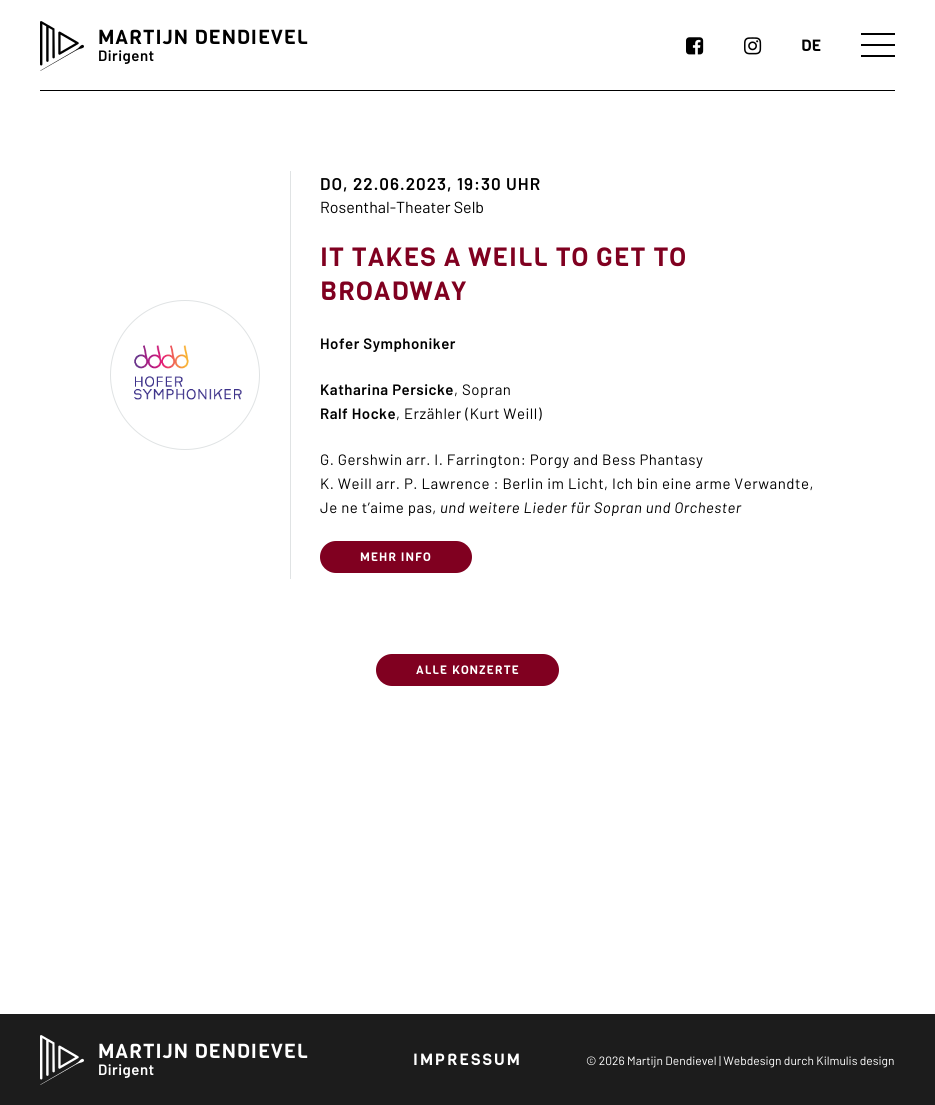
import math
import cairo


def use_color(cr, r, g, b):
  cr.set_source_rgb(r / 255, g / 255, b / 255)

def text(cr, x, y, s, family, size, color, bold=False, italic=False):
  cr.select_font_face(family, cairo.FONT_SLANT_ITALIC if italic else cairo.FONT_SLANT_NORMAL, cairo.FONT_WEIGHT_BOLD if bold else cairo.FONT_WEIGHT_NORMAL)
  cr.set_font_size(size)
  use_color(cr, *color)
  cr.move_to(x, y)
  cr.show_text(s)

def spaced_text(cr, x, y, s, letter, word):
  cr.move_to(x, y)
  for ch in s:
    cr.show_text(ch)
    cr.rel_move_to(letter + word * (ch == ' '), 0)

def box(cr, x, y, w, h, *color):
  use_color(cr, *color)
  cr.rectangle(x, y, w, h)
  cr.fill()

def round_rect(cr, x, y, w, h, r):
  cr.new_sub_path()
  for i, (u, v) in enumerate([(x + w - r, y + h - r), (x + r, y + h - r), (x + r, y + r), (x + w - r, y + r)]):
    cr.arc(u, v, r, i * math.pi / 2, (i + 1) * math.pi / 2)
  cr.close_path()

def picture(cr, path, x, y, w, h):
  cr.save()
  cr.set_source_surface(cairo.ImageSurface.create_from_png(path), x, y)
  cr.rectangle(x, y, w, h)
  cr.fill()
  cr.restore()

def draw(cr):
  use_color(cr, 255, 255, 255)
  cr.paint()
  picture(cr, "img_01.png", 40, 21, 44, 50)
  box(cr, 40, 90, 855, 1, 0, 0, 0)
  picture(cr, "img_02.png", 686, 37, 18, 18)
  picture(cr, "img_03.png", 744, 37, 18, 18)
  box(cr, 861, 44, 34, 2, 0, 0, 0)
  box(cr, 861, 33, 34, 2, 0, 0, 0)
  box(cr, 861, 55, 34, 2, 0, 0, 0)
  picture(cr, "img_04.png", 134, 345, 108, 55)
  cr.arc(185, 375, 74.5, 0, 2 * math.pi)
  use_color(cr, 224, 227, 228)
  cr.set_line_width(1)
  cr.stroke()
  box(cr, 290, 171, 1, 408, 224, 227, 228)
  use_color(cr, 128, 0, 32)
  round_rect(cr, 320, 541, 152, 32, 16)
  cr.fill()
  round_rect(cr, 376, 654, 183, 32, 16)
  cr.fill()
  box(cr, 0, 1014, 935, 91, 28, 28, 28)
  picture(cr, "img_05.png", 40, 1035, 44, 50)
  cr.select_font_face("Viga")
  cr.set_font_size(20)
  use_color(cr, 0, 0, 0)
  spaced_text(cr, 98, 44, "MARTIJN DENDIEVEL", 1, 0)
  cr.select_font_face("Barlow SemiBold")
  cr.set_font_size(15)
  spaced_text(cr, 98, 61, "Dirigent", 0.5, 0)
  text(cr, 801, 51, "DE", "Viga", 16, (0, 0, 0))
  cr.select_font_face("Barlow SemiBold")
  cr.set_font_size(17)
  spaced_text(cr, 320, 190, "DO, 22.06.2023, 19:30 UHR", 1, 0)
  text(cr, 320, 213, "Rosenthal-Theater Selb", "Barlow", 16, (0, 0, 0))
  cr.select_font_face("Viga")
  cr.set_font_size(26)
  use_color(cr, 128, 0, 32)
  spaced_text(cr, 320, 266, "IT TAKES A WEILL TO GET TO", 1, 0)
  spaced_text(cr, 320, 300, "BROADWAY", 1, 0)
  cr.select_font_face("Barlow SemiBold")
  cr.set_font_size(15)
  use_color(cr, 0, 0, 0)
  spaced_text(cr, 320, 349, "Hofer Symphoniker", 0.5, 0)
  spaced_text(cr, 320, 395, "Katharina Persicke", 0.5, 0)
  cr.select_font_face("Barlow")
  spaced_text(cr, 454, 395, ", Sopran", 0.5, 0)
  cr.select_font_face("Barlow SemiBold")
  spaced_text(cr, 320, 419, "Ralf Hocke", 0.5, 0)
  cr.select_font_face("Barlow")
  spaced_text(cr, 396, 419, ", Erzähler (Kurt Weill)", 0.5, 0)
  spaced_text(cr, 320, 465, "G. Gershwin arr. I. Farrington: Porgy and Bess Phantasy", 0.5, 0)
  spaced_text(cr, 320, 489, "K. Weill arr. P. Lawrence : Berlin im Licht, Ich bin eine arme Verwandte,", 0.5, 0)
  spaced_text(cr, 320, 513, "Je ne t’aime pas,", 0.5, 0)
  cr.select_font_face("Barlow", cairo.FONT_SLANT_ITALIC)
  spaced_text(cr, 440, 513, "und weitere Lieder für Sopran und Orchester", 0.5, 0)
  cr.select_font_face("Viga")
  cr.set_font_size(12)
  use_color(cr, 255, 255, 255)
  spaced_text(cr, 360, 561, "MEHR INFO", 1, 0)
  spaced_text(cr, 416, 674, "ALLE KONZERTE", 1, 0)
  cr.set_font_size(20)
  spaced_text(cr, 98, 1058, "MARTIJN DENDIEVEL", 1, 0)
  cr.select_font_face("Barlow SemiBold")
  cr.set_font_size(15)
  spaced_text(cr, 98, 1075, "Dirigent", 0.5, 0)
  cr.select_font_face("Viga")
  cr.set_font_size(16)
  spaced_text(cr, 413, 1065, "IMPRESSUM", 2, 0)
  text(cr, 586, 1065, "© 2026 Martijn Dendievel | Webdesign durch Kilmulis design", "Barlow", 12, (255, 255, 255))


surface = cairo.ImageSurface(cairo.FORMAT_RGB24, 935, 1105)
cr = cairo.Context(surface)
options = cairo.FontOptions()
options.set_hint_metrics(cairo.HINT_METRICS_OFF)
options.set_hint_style(cairo.HINT_STYLE_NONE)
cr.set_font_options(options)
cr.set_miter_limit(4)
draw(cr)
surface.write_to_png("out.png")
